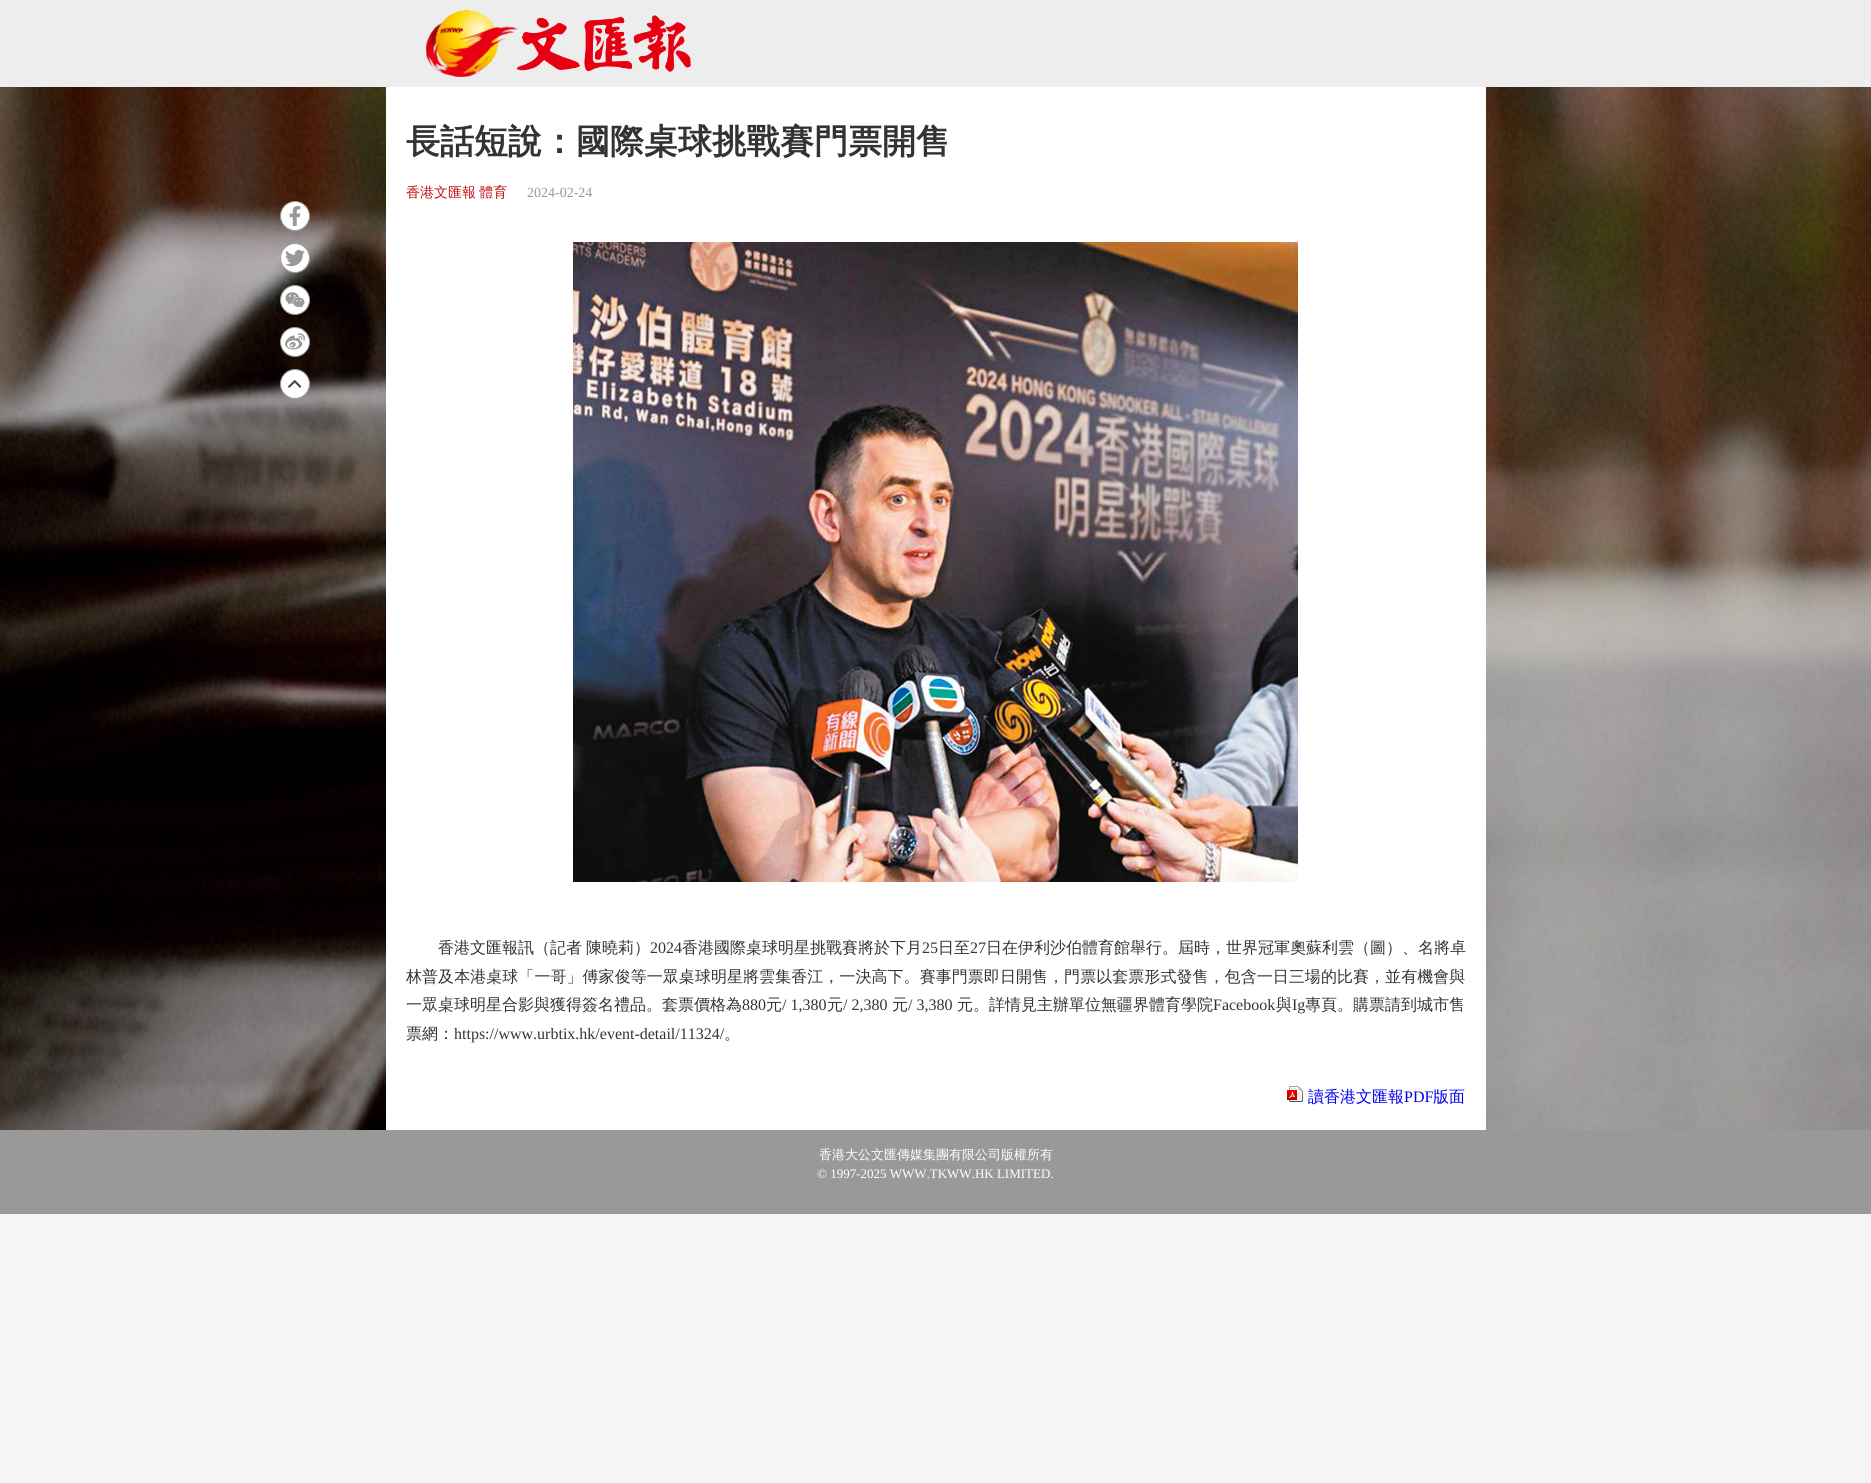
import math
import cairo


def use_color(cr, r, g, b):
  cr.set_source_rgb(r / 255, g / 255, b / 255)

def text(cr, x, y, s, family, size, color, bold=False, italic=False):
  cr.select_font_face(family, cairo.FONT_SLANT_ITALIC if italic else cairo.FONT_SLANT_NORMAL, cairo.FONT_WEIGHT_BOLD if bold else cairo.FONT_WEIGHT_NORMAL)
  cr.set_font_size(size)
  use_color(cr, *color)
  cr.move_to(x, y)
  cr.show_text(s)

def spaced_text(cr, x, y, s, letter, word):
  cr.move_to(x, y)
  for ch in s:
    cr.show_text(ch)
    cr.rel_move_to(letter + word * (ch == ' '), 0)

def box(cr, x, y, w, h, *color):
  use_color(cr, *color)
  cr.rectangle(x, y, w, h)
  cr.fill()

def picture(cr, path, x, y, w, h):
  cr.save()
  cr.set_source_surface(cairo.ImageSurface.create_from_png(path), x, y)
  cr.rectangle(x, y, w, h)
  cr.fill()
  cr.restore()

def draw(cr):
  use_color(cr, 245, 245, 245)
  cr.paint()
  box(cr, 0, 0, 1871, 87, 237, 237, 237)
  picture(cr, "img_01.png", 426, 10, 265, 67)
  picture(cr, "img_07.png", 0, 87, 1871, 1043)
  use_color(cr, 255, 255, 255)
  cr.arc(295, 216, 14.5, 0, 2 * math.pi)
  cr.fill_preserve()
  use_color(cr, 153, 153, 153)
  cr.set_line_width(1)
  cr.stroke()
  picture(cr, "img_02.png", 289, 206, 12, 20)
  use_color(cr, 255, 255, 255)
  cr.arc(295, 258, 14.5, 0, 2 * math.pi)
  cr.fill_preserve()
  use_color(cr, 153, 153, 153)
  cr.stroke()
  picture(cr, "img_03.png", 285, 249, 20, 18)
  use_color(cr, 255, 255, 255)
  cr.arc(295, 300, 14.5, 0, 2 * math.pi)
  cr.fill_preserve()
  use_color(cr, 153, 153, 153)
  cr.stroke()
  picture(cr, "img_04.png", 285, 292, 20, 16)
  use_color(cr, 255, 255, 255)
  cr.arc(295, 342, 14.5, 0, 2 * math.pi)
  cr.fill_preserve()
  use_color(cr, 153, 153, 153)
  cr.stroke()
  picture(cr, "img_05.png", 285, 333, 20, 17)
  use_color(cr, 255, 255, 255)
  cr.arc(295, 384, 14.5, 0, 2 * math.pi)
  cr.fill_preserve()
  use_color(cr, 153, 153, 153)
  cr.stroke()
  picture(cr, "img_06.png", 288, 380, 13, 8)
  box(cr, 386, 87, 1100, 1043, 255, 255, 255)
  picture(cr, "img_08.png", 573, 242, 725, 640)
  picture(cr, "img_09.png", 1287, 1086, 16, 16)
  box(cr, 0, 1130, 1871, 84, 153, 153, 153)
  text(cr, 406, 153, "長話短說：國際桌球挑戰賽門票開售", "WenQuanYi Zen Hei", 34, (51, 51, 51), bold=True)
  cr.select_font_face("WenQuanYi Zen Hei Medium")
  cr.set_font_size(14)
  use_color(cr, 194, 16, 16)
  spaced_text(cr, 406, 197, "香港文匯報 體育", 0, -1)
  text(cr, 527, 197, "2024-02-24", "Liberation Serif", 14, (153, 153, 153))
  text(cr, 438, 953, "香港文匯報訊（記者", "WenQuanYi Zen Hei Medium", 16, (51, 51, 51))
  text(cr, 586, 953, "陳曉莉）", "WenQuanYi Zen Hei Medium", 16, (51, 51, 51))
  text(cr, 650, 953, "2024", "Liberation Serif", 16, (51, 51, 51))
  text(cr, 682, 953, "香港國際桌球明星挑戰賽將於下月", "WenQuanYi Zen Hei Medium", 16, (51, 51, 51))
  text(cr, 922, 953, "25", "Liberation Serif", 16, (51, 51, 51))
  text(cr, 938, 953, "日至", "WenQuanYi Zen Hei Medium", 16, (51, 51, 51))
  text(cr, 970, 953, "27", "Liberation Serif", 16, (51, 51, 51))
  text(cr, 986, 953, "日在伊利沙伯體育館舉行。屆時，世界冠軍奧蘇利雲（圖）、名將卓", "WenQuanYi Zen Hei Medium", 16, (51, 51, 51))
  spaced_text(cr, 406, 982, "林普及本港桌球「一哥」傅家俊等一眾桌球明星將雲集香江，一決高下。賽事門票即日開售，門票以套票形式發售，包含一日三場的比賽，並有機會與", 0.05, 0)
  text(cr, 406, 1010, "一眾桌球明星合影與獲得簽名禮品。套票價格為", "WenQuanYi Zen Hei Medium", 16, (51, 51, 51))
  text(cr, 742, 1010, "880", "Liberation Serif", 16, (51, 51, 51))
  text(cr, 766, 1010, "元", "WenQuanYi Zen Hei Medium", 16, (51, 51, 51))
  text(cr, 782, 1010, "/ 1,380", "Liberation Serif", 16, (51, 51, 51))
  text(cr, 827, 1010, "元", "WenQuanYi Zen Hei Medium", 16, (51, 51, 51))
  text(cr, 843, 1010, "/ 2,380", "Liberation Serif", 16, (51, 51, 51))
  text(cr, 892, 1010, "元", "WenQuanYi Zen Hei Medium", 16, (51, 51, 51))
  text(cr, 908, 1010, "/ 3,380", "Liberation Serif", 16, (51, 51, 51))
  text(cr, 957, 1010, "元。詳情見主辦單位無疆界體育學院", "WenQuanYi Zen Hei Medium", 16, (51, 51, 51))
  text(cr, 1213, 1010, "Facebook", "Liberation Serif", 16, (51, 51, 51))
  text(cr, 1276, 1010, "與", "WenQuanYi Zen Hei Medium", 16, (51, 51, 51))
  text(cr, 1292, 1010, "Ig", "Liberation Serif", 16, (51, 51, 51))
  text(cr, 1305, 1010, "專頁。購票請到城市售", "WenQuanYi Zen Hei Medium", 16, (51, 51, 51))
  text(cr, 406, 1039, "票網：", "WenQuanYi Zen Hei Medium", 16, (51, 51, 51))
  text(cr, 454, 1039, "https://www.urbtix.hk/event-detail/11324/", "Liberation Serif", 16, (51, 51, 51))
  text(cr, 724, 1039, "。", "WenQuanYi Zen Hei Medium", 16, (51, 51, 51))
  text(cr, 1308, 1102, "讀香港文匯報", "WenQuanYi Zen Hei Medium", 16, (0, 0, 238))
  text(cr, 1404, 1102, "PDF", "Liberation Serif", 16, (0, 0, 238))
  text(cr, 1433, 1102, "版面", "WenQuanYi Zen Hei Medium", 16, (0, 0, 238))
  text(cr, 819, 1159, "香港大公文匯傳媒集團有限公司版權所有", "WenQuanYi Zen Hei Medium", 13, (255, 255, 255))
  text(cr, 817, 1178, "© 1997-2025 WWW.TKWW.HK LIMITED.", "Liberation Serif", 13, (255, 255, 255))


surface = cairo.ImageSurface(cairo.FORMAT_RGB24, 1871, 1483)
cr = cairo.Context(surface)
options = cairo.FontOptions()
options.set_hint_metrics(cairo.HINT_METRICS_OFF)
options.set_hint_style(cairo.HINT_STYLE_NONE)
cr.set_font_options(options)
cr.set_miter_limit(4)
draw(cr)
surface.write_to_png("out.png")
